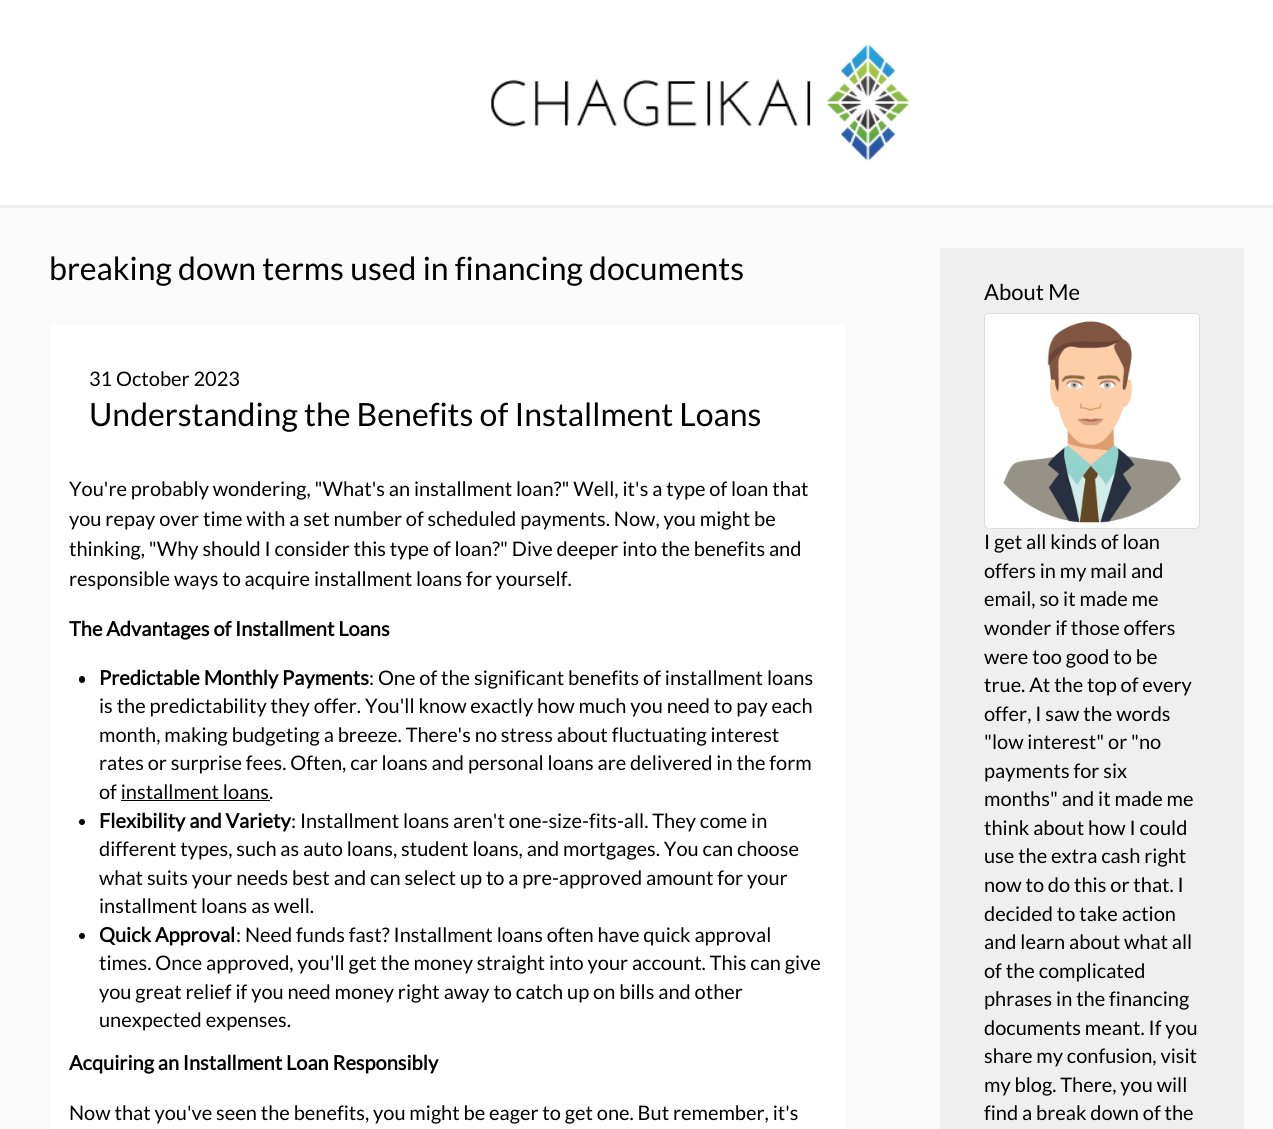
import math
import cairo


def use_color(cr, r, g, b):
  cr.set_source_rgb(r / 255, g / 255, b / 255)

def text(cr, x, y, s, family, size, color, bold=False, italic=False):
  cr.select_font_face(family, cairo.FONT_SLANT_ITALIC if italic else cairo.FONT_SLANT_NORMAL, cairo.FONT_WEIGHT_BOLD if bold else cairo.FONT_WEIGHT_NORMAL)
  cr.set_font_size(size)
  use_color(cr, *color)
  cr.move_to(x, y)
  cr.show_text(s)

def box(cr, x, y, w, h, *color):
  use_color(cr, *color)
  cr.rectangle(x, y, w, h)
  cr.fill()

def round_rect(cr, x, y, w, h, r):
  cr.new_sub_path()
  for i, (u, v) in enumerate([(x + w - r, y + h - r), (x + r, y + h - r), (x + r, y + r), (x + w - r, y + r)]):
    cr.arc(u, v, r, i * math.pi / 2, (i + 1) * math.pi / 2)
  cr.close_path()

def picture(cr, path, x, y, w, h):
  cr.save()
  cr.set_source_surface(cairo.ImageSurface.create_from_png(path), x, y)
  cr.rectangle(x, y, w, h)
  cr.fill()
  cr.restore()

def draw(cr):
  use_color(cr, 250, 250, 250)
  cr.paint()
  box(cr, 0, 0, 1273, 205, 255, 255, 255)
  box(cr, 0, 205, 1273, 3, 239, 239, 239)
  picture(cr, "img_01.png", 491, 44, 418, 117)
  box(cr, 50, 325, 795, 804, 255, 255, 255)
  use_color(cr, 0, 0, 0)
  round_rect(cr, 79, 676, 6, 7, 3)
  cr.fill()
  box(cr, 121, 800, 149, 1, 0, 0, 0)
  cr.arc(82, 822, 3, 0, 2 * math.pi)
  cr.fill()
  cr.arc(82, 936, 3, 0, 2 * math.pi)
  cr.fill()
  box(cr, 940, 248, 304, 881, 239, 239, 239)
  use_color(cr, 255, 255, 255)
  round_rect(cr, 984.5, 313.5, 215, 215, 4.5)
  cr.fill_preserve()
  use_color(cr, 221, 221, 221)
  cr.set_line_width(1)
  cr.stroke()
  picture(cr, "img_02.png", 1003, 321, 179, 202)
  text(cr, 49, 280, "breaking down terms used in financing documents", "Lato", 32, (0, 0, 0))
  text(cr, 89, 386, "31 October 2023", "Lato", 20, (0, 0, 0))
  text(cr, 89, 426, "Understanding the Benefits of Installment Loans", "Lato", 32, (0, 0, 0))
  text(cr, 69, 496, "You're probably wondering, \"What's an installment loan?\" Well, it's a type of loan that", "Lato", 20, (0, 0, 0))
  text(cr, 69, 526, "you repay over time with a set number of scheduled payments. Now, you might be", "Lato", 20, (0, 0, 0))
  text(cr, 69, 556, "thinking, \"Why should I consider this type of loan?\" Dive deeper into the benefits and", "Lato", 20, (0, 0, 0))
  text(cr, 69, 586, "responsible ways to acquire installment loans for yourself.", "Lato", 20, (0, 0, 0))
  text(cr, 69, 636, "The Advantages of Installment Loans", "Lato", 20, (0, 0, 0), bold=True)
  text(cr, 99, 685, "Predictable Monthly Payments", "Lato", 20, (0, 0, 0), bold=True)
  text(cr, 369, 685, ": One of the significant benefits of installment loans", "Lato", 20, (0, 0, 0))
  text(cr, 99, 713, "is the predictability they offer. You'll know exactly how much you need to pay each", "Lato", 20, (0, 0, 0))
  text(cr, 99, 742, "month, making budgeting a breeze. There's no stress about fluctuating interest", "Lato", 20, (0, 0, 0))
  text(cr, 99, 770, "rates or surprise fees. Often, car loans and personal loans are delivered in the form", "Lato", 20, (0, 0, 0))
  text(cr, 99, 799, "of installment loans.", "Lato", 20, (0, 0, 0))
  text(cr, 99, 828, "Flexibility and Variety", "Lato", 20, (0, 0, 0), bold=True)
  text(cr, 291, 828, ": Installment loans aren't one-size-fits-all. They come in", "Lato", 20, (0, 0, 0))
  text(cr, 99, 856, "different types, such as auto loans, student loans, and mortgages. You can choose", "Lato", 20, (0, 0, 0))
  text(cr, 99, 885, "what suits your needs best and can select up to a pre-approved amount for your", "Lato", 20, (0, 0, 0))
  text(cr, 99, 913, "installment loans as well.", "Lato", 20, (0, 0, 0))
  text(cr, 99, 942, "Quick Approval", "Lato", 20, (0, 0, 0), bold=True)
  text(cr, 236, 942, ": Need funds fast? Installment loans often have quick approval", "Lato", 20, (0, 0, 0))
  text(cr, 99, 970, "times. Once approved, you'll get the money straight into your account. This can give", "Lato", 20, (0, 0, 0))
  text(cr, 99, 999, "you great relief if you need money right away to catch up on bills and other", "Lato", 20, (0, 0, 0))
  text(cr, 99, 1027, "unexpected expenses.", "Lato", 20, (0, 0, 0))
  text(cr, 69, 1070, "Acquiring an Installment Loan Responsibly", "Lato", 20, (0, 0, 0), bold=True)
  text(cr, 69, 1120, "Now that you've seen the benefits, you might be eager to get one. But remember, it's", "Lato", 20, (0, 0, 0))
  text(cr, 984, 300, "About Me", "Lato", 22, (0, 0, 0))
  text(cr, 984, 549, "I get all kinds of loan", "Lato", 20, (0, 0, 0))
  text(cr, 984, 578, "offers in my mail and", "Lato", 20, (0, 0, 0))
  text(cr, 984, 606, "email, so it made me", "Lato", 20, (0, 0, 0))
  text(cr, 984, 635, "wonder if those offers", "Lato", 20, (0, 0, 0))
  text(cr, 984, 664, "were too good to be", "Lato", 20, (0, 0, 0))
  text(cr, 984, 692, "true. At the top of every", "Lato", 20, (0, 0, 0))
  text(cr, 984, 721, "offer, I saw the words", "Lato", 20, (0, 0, 0))
  text(cr, 984, 749, "\"low interest\" or \"no", "Lato", 20, (0, 0, 0))
  text(cr, 984, 778, "payments for six", "Lato", 20, (0, 0, 0))
  text(cr, 984, 806, "months\" and it made me", "Lato", 20, (0, 0, 0))
  text(cr, 984, 835, "think about how I could", "Lato", 20, (0, 0, 0))
  text(cr, 984, 863, "use the extra cash right", "Lato", 20, (0, 0, 0))
  text(cr, 984, 892, "now to do this or that. I", "Lato", 20, (0, 0, 0))
  text(cr, 984, 921, "decided to take action", "Lato", 20, (0, 0, 0))
  text(cr, 984, 949, "and learn about what all", "Lato", 20, (0, 0, 0))
  text(cr, 984, 978, "of the complicated", "Lato", 20, (0, 0, 0))
  text(cr, 984, 1006, "phrases in the financing", "Lato", 20, (0, 0, 0))
  text(cr, 984, 1035, "documents meant. If you", "Lato", 20, (0, 0, 0))
  text(cr, 984, 1063, "share my confusion, visit", "Lato", 20, (0, 0, 0))
  text(cr, 984, 1092, "my blog. There, you will", "Lato", 20, (0, 0, 0))
  text(cr, 984, 1120, "find a break down of the", "Lato", 20, (0, 0, 0))


surface = cairo.ImageSurface(cairo.FORMAT_RGB24, 1273, 1129)
cr = cairo.Context(surface)
options = cairo.FontOptions()
options.set_hint_metrics(cairo.HINT_METRICS_OFF)
options.set_hint_style(cairo.HINT_STYLE_NONE)
cr.set_font_options(options)
cr.set_miter_limit(4)
draw(cr)
surface.write_to_png("out.png")
